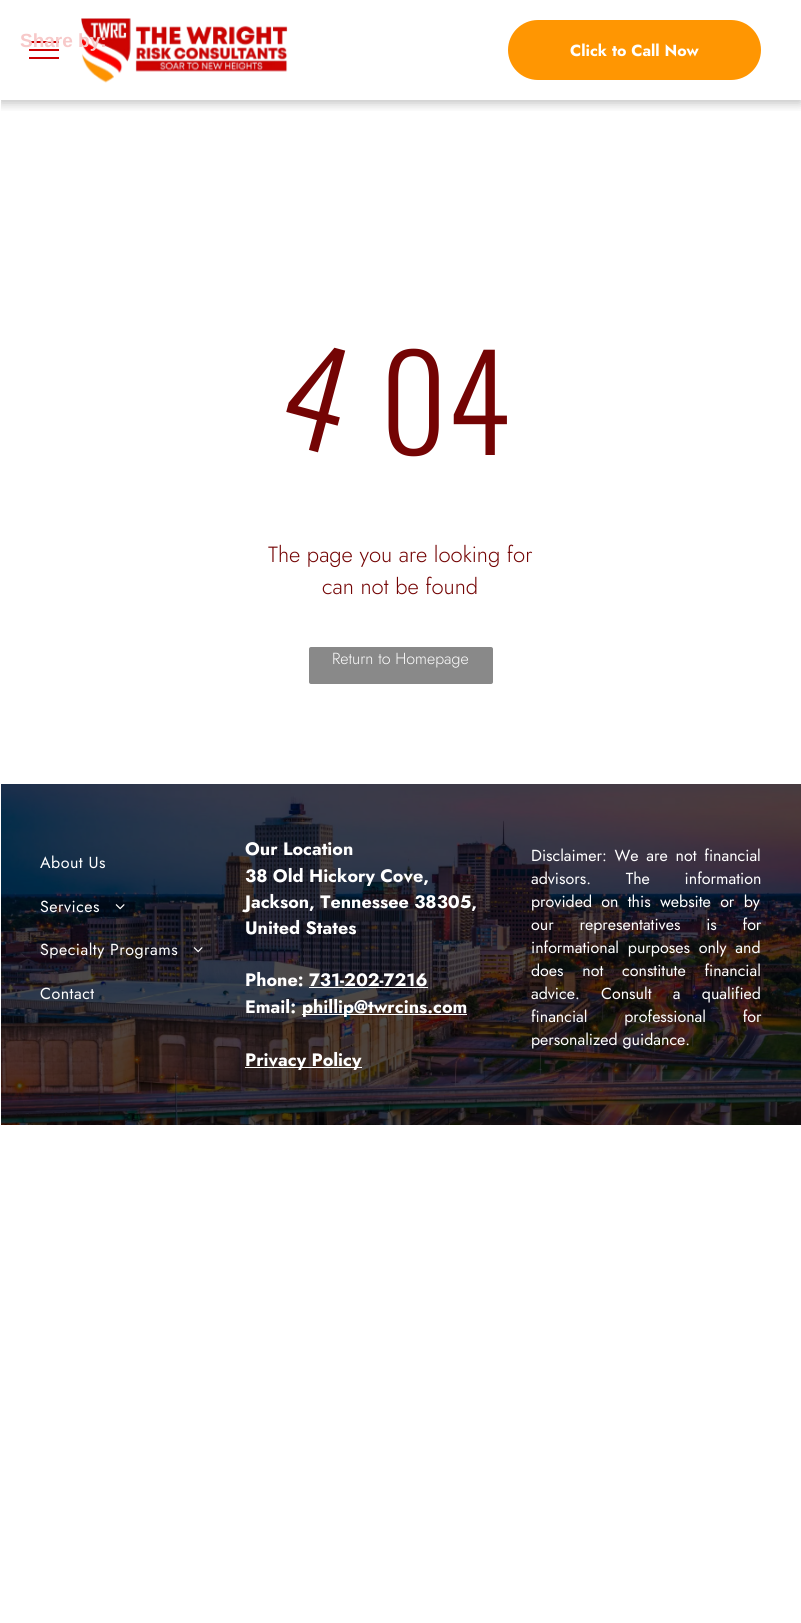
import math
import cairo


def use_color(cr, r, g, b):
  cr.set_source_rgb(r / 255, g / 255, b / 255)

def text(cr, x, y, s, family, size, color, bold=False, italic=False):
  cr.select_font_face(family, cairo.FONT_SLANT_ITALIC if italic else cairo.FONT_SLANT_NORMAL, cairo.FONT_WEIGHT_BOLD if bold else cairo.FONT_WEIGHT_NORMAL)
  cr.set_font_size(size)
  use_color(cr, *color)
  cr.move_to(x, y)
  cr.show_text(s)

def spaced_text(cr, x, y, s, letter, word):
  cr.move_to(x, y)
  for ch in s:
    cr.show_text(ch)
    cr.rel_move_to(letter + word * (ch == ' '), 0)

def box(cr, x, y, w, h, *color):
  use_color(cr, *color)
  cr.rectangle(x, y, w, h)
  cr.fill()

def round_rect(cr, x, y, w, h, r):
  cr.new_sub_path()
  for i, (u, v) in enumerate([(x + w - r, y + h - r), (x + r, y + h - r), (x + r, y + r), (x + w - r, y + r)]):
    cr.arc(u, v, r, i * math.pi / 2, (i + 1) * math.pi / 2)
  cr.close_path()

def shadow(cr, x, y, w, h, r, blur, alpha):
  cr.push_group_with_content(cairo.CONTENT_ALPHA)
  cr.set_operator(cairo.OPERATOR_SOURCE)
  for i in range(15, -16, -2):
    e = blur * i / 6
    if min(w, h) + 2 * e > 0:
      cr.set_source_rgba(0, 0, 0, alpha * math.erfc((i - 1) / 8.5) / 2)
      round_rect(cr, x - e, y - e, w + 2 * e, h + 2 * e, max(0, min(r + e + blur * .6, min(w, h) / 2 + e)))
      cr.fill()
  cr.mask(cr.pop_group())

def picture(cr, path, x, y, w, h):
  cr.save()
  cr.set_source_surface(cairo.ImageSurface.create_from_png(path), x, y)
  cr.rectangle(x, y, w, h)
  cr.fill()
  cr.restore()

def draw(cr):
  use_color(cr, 255, 255, 255)
  cr.paint()
  cr.save()
  cr.rectangle(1, 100, 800, 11)
  cr.clip()
  use_color(cr, 0, 0, 0)
  shadow(cr, 0, 3, 801, 100, 0, 5.5, 0.25)
  cr.restore()
  box(cr, 0, 100, 1, 11, 255, 255, 255)
  box(cr, 29, 41, 30, 2, 205, 1, 2)
  box(cr, 29, 49, 30, 2, 205, 1, 2)
  box(cr, 29, 57, 30, 2, 205, 1, 2)
  picture(cr, "img_01.png", 81, 18, 207, 65)
  use_color(cr, 255, 150, 2)
  round_rect(cr, 508, 20, 253, 60, 30)
  cr.fill()
  use_color(cr, 137, 137, 137)
  round_rect(cr, 309, 647, 184, 37, 2)
  cr.fill()
  picture(cr, "img_02.png", 1, 784, 800, 341)
  picture(cr, "img_03.png", 115, 904, 10, 6)
  picture(cr, "img_04.png", 193, 947, 10, 6)
  box(cr, 309, 987, 119, 1, 255, 255, 255)
  box(cr, 302, 1014, 165, 1, 255, 255, 255)
  box(cr, 245, 1067, 117, 1, 255, 255, 255)
  text(cr, 20, 47, "Share by:", "Liberation Sans", 19, (247, 201, 201), bold=True)
  text(cr, 570, 56, "Click to Call Now", "Jost", 16, (255, 255, 255), bold=True)
  cr.save()
  cr.translate(272, 440)
  cr.rotate(15 * math.pi / 180)
  text(cr, 0, 0, "4", "Oswald Light", 130, (116, 4, 4))
  cr.restore()
  text(cr, 380, 455, "04", "Oswald Light", 130, (116, 4, 4))
  text(cr, 268, 562, "The page you are looking for", "Jost Light", 22, (116, 4, 4))
  text(cr, 322, 594, "can not be found", "Jost Light", 22, (116, 4, 4))
  text(cr, 332, 664, "Return to Homepage", "Jost Light", 16, (255, 255, 255))
  cr.select_font_face("Jost")
  spaced_text(cr, 40, 868, "About Us", 0.5, 0)
  spaced_text(cr, 40, 912, "Services", 0.5, 0)
  spaced_text(cr, 40, 955, "Specialty Programs", 0.5, 0)
  spaced_text(cr, 40, 999, "Contact", 0.5, 0)
  text(cr, 245, 855, "Our Location", "Jost", 18, (255, 255, 255), bold=True)
  text(cr, 245, 882, "38 Old Hickory Cove,", "Jost", 18, (255, 255, 255), bold=True)
  text(cr, 245, 908, "Jackson, Tennessee 38305,", "Jost", 18, (255, 255, 255), bold=True)
  text(cr, 245, 934, "United States", "Jost", 18, (255, 255, 255), bold=True)
  text(cr, 245, 986, "Phone: 731-202-7216", "Jost", 18, (255, 255, 255), bold=True)
  text(cr, 245, 1013, "Email:", "Jost", 18, (255, 255, 255), bold=True)
  text(cr, 302, 1013, "phillip@twrcins.com", "Jost", 18, (255, 255, 255), bold=True)
  text(cr, 245, 1066, "Privacy Policy", "Jost", 18, (255, 255, 255), bold=True)
  cr.select_font_face("Jost")
  cr.set_font_size(16)
  spaced_text(cr, 531, 861, "Disclaimer: We are not financial", 0, 3)
  spaced_text(cr, 531, 884, "advisors. The information", 0, 30)
  spaced_text(cr, 531, 907, "provided on this website or by", 0, 4.5)
  spaced_text(cr, 531, 930, "our representatives is for", 0, 21)
  spaced_text(cr, 531, 953, "informational purposes only and", 0, 4)
  spaced_text(cr, 531, 976, "does not constitute financial", 0, 14)
  spaced_text(cr, 531, 999, "advice. Consult a qualified", 0, 16.5)
  spaced_text(cr, 531, 1022, "financial professional for", 0, 32)
  text(cr, 531, 1045, "personalized guidance.", "Jost", 16, (255, 255, 255))


surface = cairo.ImageSurface(cairo.FORMAT_RGB24, 801, 1623)
cr = cairo.Context(surface)
options = cairo.FontOptions()
options.set_hint_metrics(cairo.HINT_METRICS_OFF)
options.set_hint_style(cairo.HINT_STYLE_NONE)
cr.set_font_options(options)
cr.set_miter_limit(4)
draw(cr)
surface.write_to_png("out.png")
